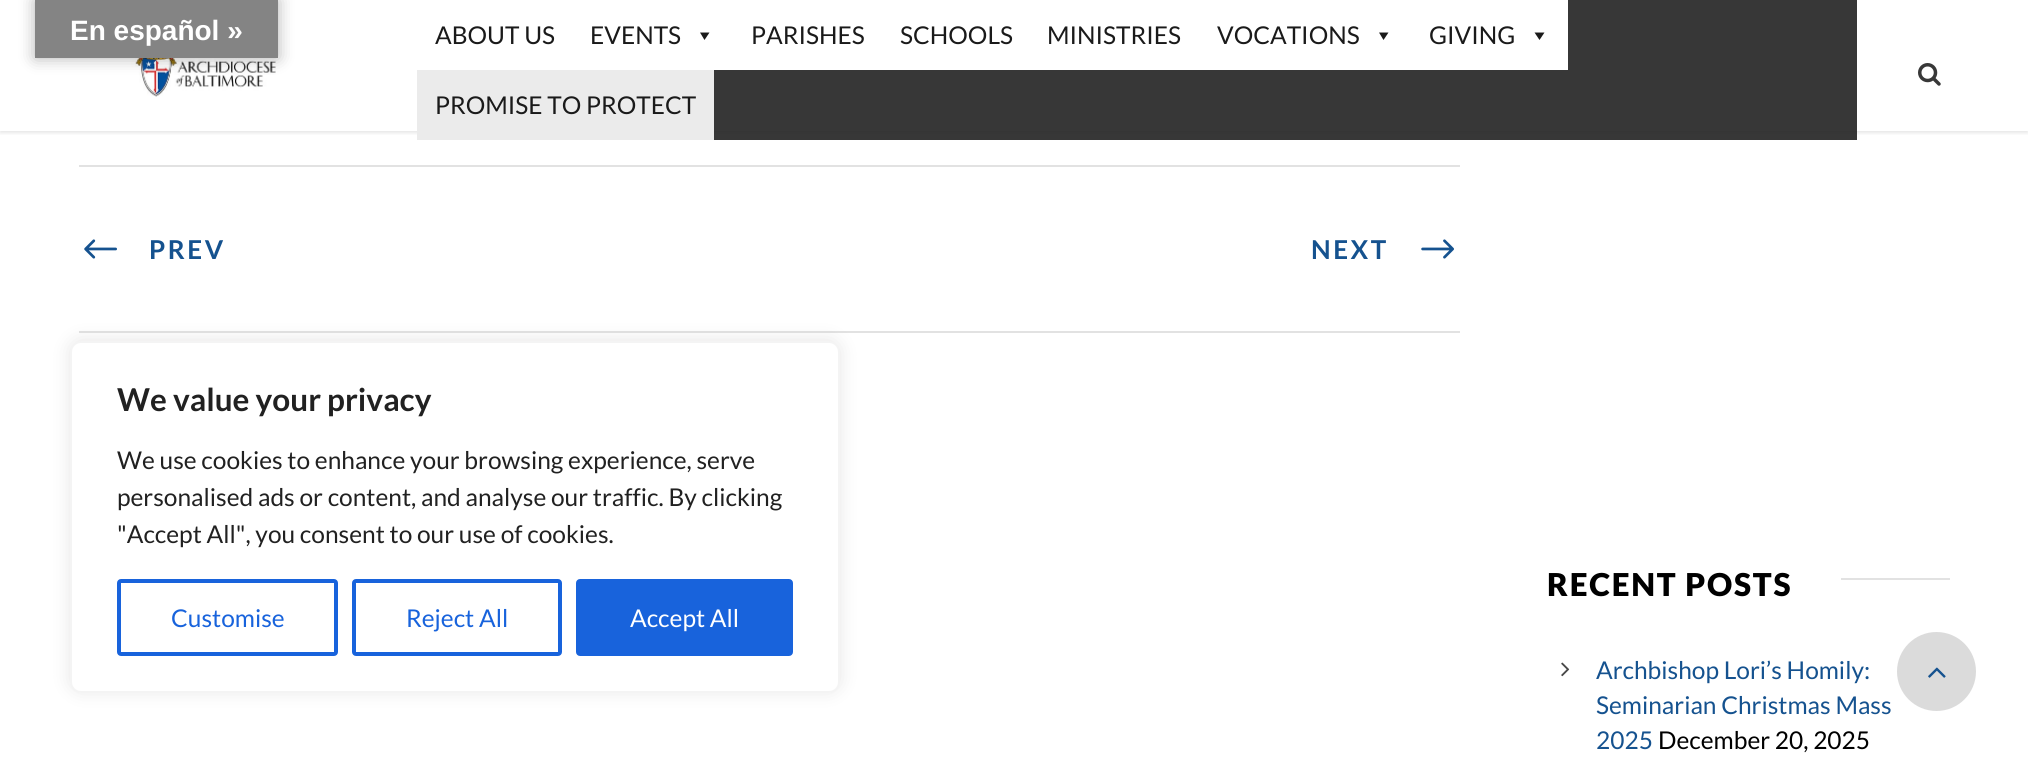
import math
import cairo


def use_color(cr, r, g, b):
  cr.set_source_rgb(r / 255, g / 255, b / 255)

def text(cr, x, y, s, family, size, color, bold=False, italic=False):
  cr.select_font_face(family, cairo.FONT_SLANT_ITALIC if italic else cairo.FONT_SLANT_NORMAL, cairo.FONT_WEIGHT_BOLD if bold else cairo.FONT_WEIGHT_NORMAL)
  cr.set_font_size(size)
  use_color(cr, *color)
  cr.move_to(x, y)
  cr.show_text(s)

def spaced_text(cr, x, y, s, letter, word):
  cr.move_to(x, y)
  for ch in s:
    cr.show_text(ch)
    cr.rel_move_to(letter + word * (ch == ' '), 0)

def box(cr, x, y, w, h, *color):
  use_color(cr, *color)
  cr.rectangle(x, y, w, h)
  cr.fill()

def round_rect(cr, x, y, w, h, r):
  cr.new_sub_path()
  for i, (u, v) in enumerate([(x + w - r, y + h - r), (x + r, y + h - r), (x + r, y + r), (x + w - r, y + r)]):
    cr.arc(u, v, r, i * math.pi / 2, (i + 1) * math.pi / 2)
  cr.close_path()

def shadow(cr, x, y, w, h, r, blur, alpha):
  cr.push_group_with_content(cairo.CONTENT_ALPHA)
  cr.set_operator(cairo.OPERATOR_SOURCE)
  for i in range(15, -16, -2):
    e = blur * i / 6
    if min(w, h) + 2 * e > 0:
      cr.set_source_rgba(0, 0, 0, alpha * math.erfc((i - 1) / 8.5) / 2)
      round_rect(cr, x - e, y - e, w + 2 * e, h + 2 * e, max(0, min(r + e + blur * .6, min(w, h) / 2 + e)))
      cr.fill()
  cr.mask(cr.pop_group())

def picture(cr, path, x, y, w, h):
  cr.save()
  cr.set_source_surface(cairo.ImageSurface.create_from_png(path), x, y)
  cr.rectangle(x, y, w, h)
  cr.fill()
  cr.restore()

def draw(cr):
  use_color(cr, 255, 255, 255)
  cr.paint()
  cr.save()
  cr.rectangle(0, 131, 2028, 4)
  cr.clip()
  use_color(cr, 0, 0, 0)
  shadow(cr, 0, 2, 2028, 131, 0, 2, 0.1)
  cr.restore()
  picture(cr, "img_01.png", 131, 58, 145, 39)
  use_color(cr, 0, 0, 0)
  shadow(cr, 35, 0, 243, 58, 0, 8, 0.3)
  box(cr, 35, 0, 243, 58, 132, 132, 132)
  cr.set_source_rgba(0.133, 0.133, 0.133, 0.9)
  cr.rectangle(714, 0, 1143, 140)
  cr.fill()
  box(cr, 714, 0, 854, 70, 255, 255, 255)
  use_color(cr, 26, 26, 26)
  cr.new_path()
  cr.move_to(709.5, 32.5)
  cr.line_to(704.5, 40)
  cr.line_to(700, 32.5)
  cr.close_path()
  cr.fill()
  cr.new_path()
  cr.move_to(1388.5, 32.5)
  cr.line_to(1383.5, 40)
  cr.line_to(1379, 32.5)
  cr.close_path()
  cr.fill()
  cr.new_path()
  cr.move_to(1544.5, 32.5)
  cr.line_to(1539.5, 40)
  cr.line_to(1534.5, 32.5)
  cr.close_path()
  cr.fill()
  box(cr, 417, 70, 297, 70, 235, 235, 235)
  picture(cr, "img_02.png", 1918, 63, 23, 23)
  box(cr, 79, 165, 1381, 2, 226, 226, 226)
  box(cr, 79, 331, 1381, 2, 226, 226, 226)
  picture(cr, "img_03.png", 84, 239, 33, 20)
  picture(cr, "img_04.png", 1421, 239, 33, 20)
  box(cr, 1841, 578, 109, 2, 226, 226, 226)
  picture(cr, "img_05.png", 1561, 662, 9, 15)
  use_color(cr, 172, 171, 171)
  shadow(cr, 70, 340, 770, 351, 11, 9, 0.3)
  use_color(cr, 255, 255, 255)
  round_rect(cr, 71, 342, 768, 350, 10)
  cr.fill_preserve()
  use_color(cr, 244, 244, 244)
  cr.stroke()
  round_rect(cr, 119, 581, 217, 73, 2)
  use_color(cr, 24, 99, 220)
  cr.set_line_width(4)
  cr.stroke()
  round_rect(cr, 354, 581, 206, 73, 2)
  cr.stroke()
  round_rect(cr, 578, 581, 213, 73, 2)
  cr.fill_preserve()
  cr.stroke()
  use_color(cr, 219, 219, 219)
  cr.arc(1936.5, 671.5, 39.5, 0, 2 * math.pi)
  cr.fill()
  picture(cr, "img_06.png", 1928, 667, 18, 11)
  text(cr, 70, 40, "En español »", "Liberation Sans", 28, (255, 255, 255), bold=True)
  text(cr, 435, 44, "ABOUT US", "Lato", 24.5, (26, 26, 26))
  text(cr, 590, 44, "EVENTS", "Lato", 24.5, (26, 26, 26))
  text(cr, 751, 44, "PARISHES", "Lato", 24.5, (26, 26, 26))
  text(cr, 900, 44, "SCHOOLS", "Lato", 24.5, (26, 26, 26))
  text(cr, 1047, 44, "MINISTRIES", "Lato", 24.5, (26, 26, 26))
  text(cr, 1217, 44, "VOCATIONS", "Lato", 24.5, (26, 26, 26))
  text(cr, 1429, 44, "GIVING", "Lato", 24.5, (26, 26, 26))
  text(cr, 435, 114, "PROMISE TO PROTECT", "Lato", 24.5, (26, 26, 26))
  cr.select_font_face("Lato", cairo.FONT_SLANT_NORMAL, cairo.FONT_WEIGHT_BOLD)
  cr.set_font_size(26)
  use_color(cr, 21, 82, 143)
  spaced_text(cr, 149, 259, "PREV", 2.5, 0)
  spaced_text(cr, 1311, 259, "NEXT", 2.5, 0)
  cr.select_font_face("Lato Black")
  cr.set_font_size(31.5)
  use_color(cr, 0, 0, 0)
  spaced_text(cr, 1547, 596, "RECENT POSTS", 1.75, 0)
  text(cr, 1596, 679, "Archbishop Lori’s Homily:", "Lato", 24.5, (21, 82, 143))
  text(cr, 1596, 714, "Seminarian Christmas Mass", "Lato", 24.5, (21, 82, 143))
  text(cr, 1596, 749, "2025", "Lato", 24.5, (21, 82, 143))
  text(cr, 1658, 749, "December 20, 2025", "Lato", 24.5, (0, 0, 0))
  text(cr, 117, 411, "We value your privacy", "Lato", 31.5, (33, 33, 33), bold=True)
  text(cr, 117, 469, "We use cookies to enhance your browsing experience, serve", "Lato", 24.5, (33, 33, 33))
  text(cr, 117, 506, "personalised ads or content, and analyse our traffic. By clicking", "Lato", 24.5, (33, 33, 33))
  text(cr, 117, 543, "\"Accept All\", you consent to our use of cookies.", "Lato", 24.5, (33, 33, 33))
  text(cr, 171, 627, "Customise", "Lato", 24.5, (24, 99, 220))
  text(cr, 406, 627, "Reject All", "Lato", 24.5, (24, 99, 220))
  text(cr, 630, 627, "Accept All", "Lato", 24.5, (255, 255, 255))


surface = cairo.ImageSurface(cairo.FORMAT_RGB24, 2028, 762)
cr = cairo.Context(surface)
options = cairo.FontOptions()
options.set_hint_metrics(cairo.HINT_METRICS_OFF)
options.set_hint_style(cairo.HINT_STYLE_NONE)
cr.set_font_options(options)
cr.set_miter_limit(4)
draw(cr)
surface.write_to_png("out.png")
